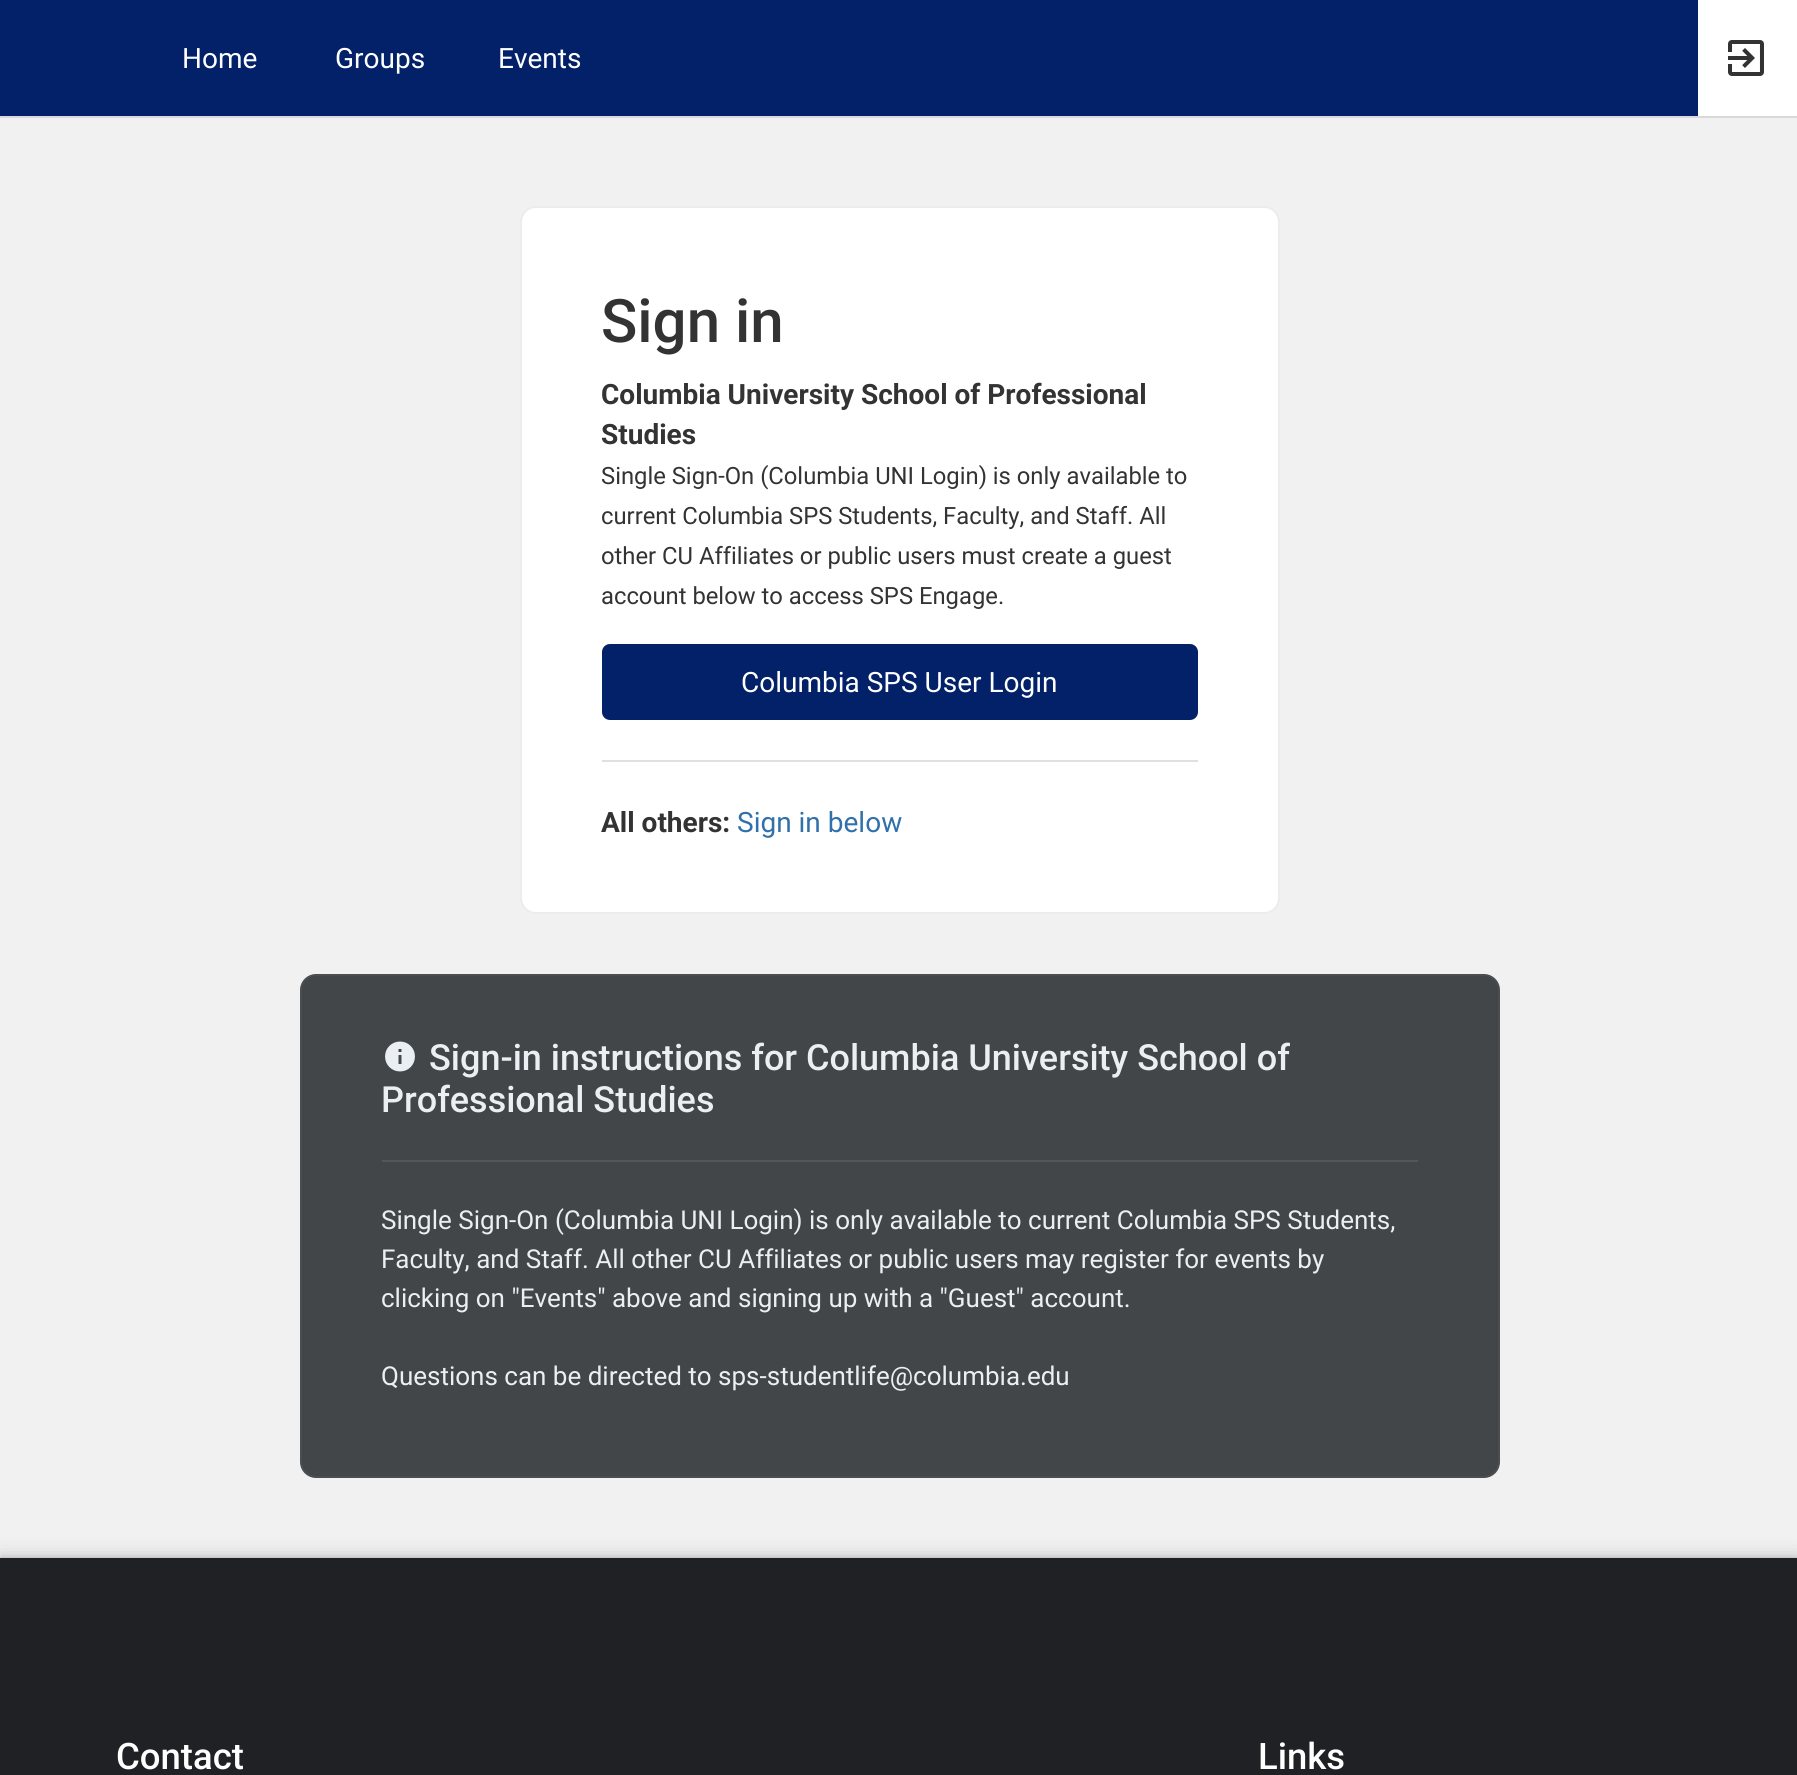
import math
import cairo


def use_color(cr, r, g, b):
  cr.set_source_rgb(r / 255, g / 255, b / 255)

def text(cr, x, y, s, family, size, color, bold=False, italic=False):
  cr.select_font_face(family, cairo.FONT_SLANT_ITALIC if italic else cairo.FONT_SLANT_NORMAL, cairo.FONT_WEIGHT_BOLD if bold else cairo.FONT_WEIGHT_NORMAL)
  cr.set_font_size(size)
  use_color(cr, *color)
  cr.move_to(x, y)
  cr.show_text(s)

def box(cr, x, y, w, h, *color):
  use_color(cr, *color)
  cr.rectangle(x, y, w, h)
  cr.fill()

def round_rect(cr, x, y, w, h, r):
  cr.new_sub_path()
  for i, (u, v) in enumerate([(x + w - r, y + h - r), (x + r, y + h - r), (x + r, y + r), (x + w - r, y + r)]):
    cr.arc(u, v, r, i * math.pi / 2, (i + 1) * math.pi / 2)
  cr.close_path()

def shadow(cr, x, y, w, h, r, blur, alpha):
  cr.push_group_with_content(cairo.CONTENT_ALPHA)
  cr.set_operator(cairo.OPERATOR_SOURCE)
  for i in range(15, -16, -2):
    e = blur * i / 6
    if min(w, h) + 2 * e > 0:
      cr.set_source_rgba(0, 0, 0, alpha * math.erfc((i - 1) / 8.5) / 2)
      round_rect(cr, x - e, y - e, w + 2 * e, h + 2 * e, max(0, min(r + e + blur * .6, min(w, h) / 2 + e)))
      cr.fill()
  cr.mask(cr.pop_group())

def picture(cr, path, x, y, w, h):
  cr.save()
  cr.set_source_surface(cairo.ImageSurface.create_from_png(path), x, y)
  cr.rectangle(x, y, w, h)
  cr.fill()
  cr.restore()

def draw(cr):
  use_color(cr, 241, 241, 241)
  cr.paint()
  box(cr, 0, 0, 1698, 116, 2, 33, 105)
  box(cr, 0, 116, 1797, 2, 217, 217, 217)
  box(cr, 1698, 0, 99, 116, 255, 255, 255)
  picture(cr, "img_01.png", 1728, 40, 36, 36)
  round_rect(cr, 521, 207, 758, 706, 15)
  cr.fill_preserve()
  use_color(cr, 236, 236, 236)
  cr.stroke()
  use_color(cr, 2, 33, 105)
  round_rect(cr, 602, 644, 596, 76, 8)
  cr.fill()
  box(cr, 602, 760, 596, 2, 224, 224, 224)
  use_color(cr, 66, 70, 73)
  round_rect(cr, 301, 975, 1198, 502, 15)
  cr.fill_preserve()
  use_color(cr, 75, 78, 81)
  cr.stroke()
  picture(cr, "img_02.png", 385, 1041, 30, 31)
  box(cr, 382, 1160, 1036, 2, 83, 87, 90)
  use_color(cr, 0, 0, 0)
  shadow(cr, 2, 1558, 1794, 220, 0, 1, 0.12)
  shadow(cr, 0, 1556, 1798, 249, 0, 10, 0.14)
  shadow(cr, 0, 1556, 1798, 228, 0, 3, 0.1)
  box(cr, 0, 1558, 1797, 217, 32, 33, 36)
  text(cr, 182, 68, "Home", "Roboto", 28, (255, 255, 255))
  text(cr, 335, 68, "Groups", "Roboto", 28, (255, 255, 255))
  text(cr, 498, 68, "Events", "Roboto", 28, (255, 255, 255))
  text(cr, 601, 342, "Sign in", "Roboto Medium", 60, (51, 51, 51))
  text(cr, 601, 404, "Columbia University School of Professional", "Roboto", 28, (51, 51, 51), bold=True)
  text(cr, 601, 444, "Studies", "Roboto", 28, (51, 51, 51), bold=True)
  text(cr, 601, 484, "Single Sign-On (Columbia UNI Login) is only available to", "Roboto", 23.8, (51, 51, 51))
  text(cr, 601, 524, "current Columbia SPS Students, Faculty, and Staff. All", "Roboto", 23.8, (51, 51, 51))
  text(cr, 601, 564, "other CU Affiliates or public users must create a guest", "Roboto", 23.8, (51, 51, 51))
  text(cr, 601, 604, "account below to access SPS Engage.", "Roboto", 23.8, (51, 51, 51))
  text(cr, 741, 692, "Columbia SPS User Login", "Roboto", 28, (255, 255, 255))
  text(cr, 601, 832, "All others:", "Roboto", 28, (51, 51, 51), bold=True)
  text(cr, 737, 832, "Sign in below", "Roboto", 28, (48, 113, 171))
  text(cr, 429, 1070, "Sign-in instructions for Columbia University School of", "Roboto Medium", 36, (234, 239, 243))
  text(cr, 381, 1112, "Professional Studies", "Roboto Medium", 36, (234, 239, 243))
  text(cr, 381, 1229, "Single Sign-On (Columbia UNI Login) is only available to current Columbia SPS Students,", "Roboto", 26, (234, 239, 243))
  text(cr, 381, 1268, "Faculty, and Staff. All other CU Affiliates or public users may register for events by", "Roboto", 26, (234, 239, 243))
  text(cr, 381, 1307, "clicking on \"Events\" above and signing up with a \"Guest\" account.", "Roboto", 26, (234, 239, 243))
  text(cr, 381, 1385, "Questions can be directed to sps-studentlife@columbia.edu", "Roboto", 26, (234, 239, 243))
  text(cr, 116, 1769, "Contact", "Roboto Medium", 36.5, (255, 255, 255))
  text(cr, 1258, 1769, "Links", "Roboto Medium", 36.5, (255, 255, 255))


surface = cairo.ImageSurface(cairo.FORMAT_RGB24, 1797, 1775)
cr = cairo.Context(surface)
options = cairo.FontOptions()
options.set_hint_metrics(cairo.HINT_METRICS_OFF)
options.set_hint_style(cairo.HINT_STYLE_NONE)
cr.set_font_options(options)
cr.set_miter_limit(4)
draw(cr)
surface.write_to_png("out.png")
